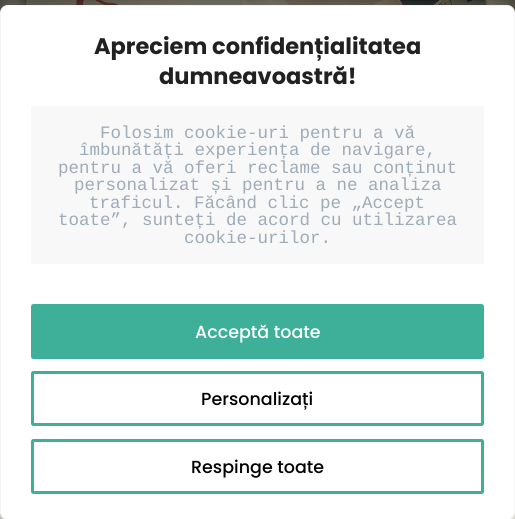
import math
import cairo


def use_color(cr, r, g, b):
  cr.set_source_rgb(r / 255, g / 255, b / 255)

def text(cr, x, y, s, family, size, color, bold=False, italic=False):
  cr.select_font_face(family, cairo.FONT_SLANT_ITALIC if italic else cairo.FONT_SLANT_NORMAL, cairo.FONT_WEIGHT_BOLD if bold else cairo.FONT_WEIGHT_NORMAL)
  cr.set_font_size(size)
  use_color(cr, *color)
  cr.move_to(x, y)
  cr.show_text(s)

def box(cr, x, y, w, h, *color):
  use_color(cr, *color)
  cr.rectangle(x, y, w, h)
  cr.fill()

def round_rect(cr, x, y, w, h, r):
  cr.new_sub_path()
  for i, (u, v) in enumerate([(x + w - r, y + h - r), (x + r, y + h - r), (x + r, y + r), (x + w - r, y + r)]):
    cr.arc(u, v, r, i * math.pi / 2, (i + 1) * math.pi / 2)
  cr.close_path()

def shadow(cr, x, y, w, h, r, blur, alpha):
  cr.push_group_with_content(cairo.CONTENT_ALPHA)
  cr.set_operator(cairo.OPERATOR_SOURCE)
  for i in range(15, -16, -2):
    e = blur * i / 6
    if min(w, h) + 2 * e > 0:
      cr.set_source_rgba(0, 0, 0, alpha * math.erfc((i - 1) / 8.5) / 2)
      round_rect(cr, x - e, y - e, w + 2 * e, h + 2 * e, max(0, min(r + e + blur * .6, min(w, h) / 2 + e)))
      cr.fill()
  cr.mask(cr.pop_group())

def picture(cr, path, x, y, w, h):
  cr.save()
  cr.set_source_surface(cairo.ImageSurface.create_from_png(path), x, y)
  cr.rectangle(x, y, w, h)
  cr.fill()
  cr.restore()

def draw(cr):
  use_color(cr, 255, 255, 255)
  cr.paint()
  picture(cr, "img_01.png", 0, 512, 515, 7)
  picture(cr, "img_02.png", 0, 0, 515, 13)
  use_color(cr, 172, 171, 171)
  shadow(cr, 0, 4, 515, 515, 8, 6, 0.3)
  use_color(cr, 255, 255, 255)
  round_rect(cr, 0.5, 5.5, 514, 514, 7.5)
  cr.fill_preserve()
  use_color(cr, 244, 244, 244)
  cr.set_line_width(1)
  cr.stroke()
  box(cr, 31, 106, 453, 158, 248, 248, 248)
  use_color(cr, 62, 176, 153)
  round_rect(cr, 32.5, 305.5, 450, 52, 1)
  cr.fill_preserve()
  cr.set_line_width(3)
  cr.stroke()
  round_rect(cr, 32.5, 372.5, 450, 52, 1)
  cr.stroke()
  round_rect(cr, 32.5, 440.5, 450, 52, 1)
  cr.stroke()
  text(cr, 94, 54, "Apreciem confidențialitatea", "Poppins", 22.5, (33, 33, 33), bold=True)
  text(cr, 159, 84, "dumneavoastră!", "Poppins", 22.5, (33, 33, 33), bold=True)
  text(cr, 100, 138, "Folosim cookie-uri pentru a vă", "Liberation Mono", 17.5, (158, 171, 185))
  text(cr, 79, 155, "îmbunătăți experiența de navigare,", "Liberation Mono", 17.5, (158, 171, 185))
  text(cr, 58, 173, "pentru a vă oferi reclame sau conținut", "Liberation Mono", 17.5, (158, 171, 185))
  text(cr, 74, 190, "personalizat și pentru a ne analiza", "Liberation Mono", 17.5, (158, 171, 185))
  text(cr, 89, 208, "traficul. Făcând clic pe „Accept", "Liberation Mono", 17.5, (158, 171, 185))
  text(cr, 58, 225, "toate”, sunteți de acord cu utilizarea", "Liberation Mono", 17.5, (158, 171, 185))
  text(cr, 184, 243, "cookie-urilor.", "Liberation Mono", 17.5, (158, 171, 185))
  text(cr, 195, 338, "Acceptă toate", "Poppins Medium", 17.5, (255, 255, 255))
  text(cr, 201, 405, "Personalizați", "Poppins Medium", 17.5, (0, 0, 0))
  text(cr, 191, 473, "Respinge toate", "Poppins Medium", 17.5, (0, 0, 0))


surface = cairo.ImageSurface(cairo.FORMAT_RGB24, 515, 519)
cr = cairo.Context(surface)
options = cairo.FontOptions()
options.set_hint_metrics(cairo.HINT_METRICS_OFF)
options.set_hint_style(cairo.HINT_STYLE_NONE)
cr.set_font_options(options)
cr.set_miter_limit(4)
draw(cr)
surface.write_to_png("out.png")
